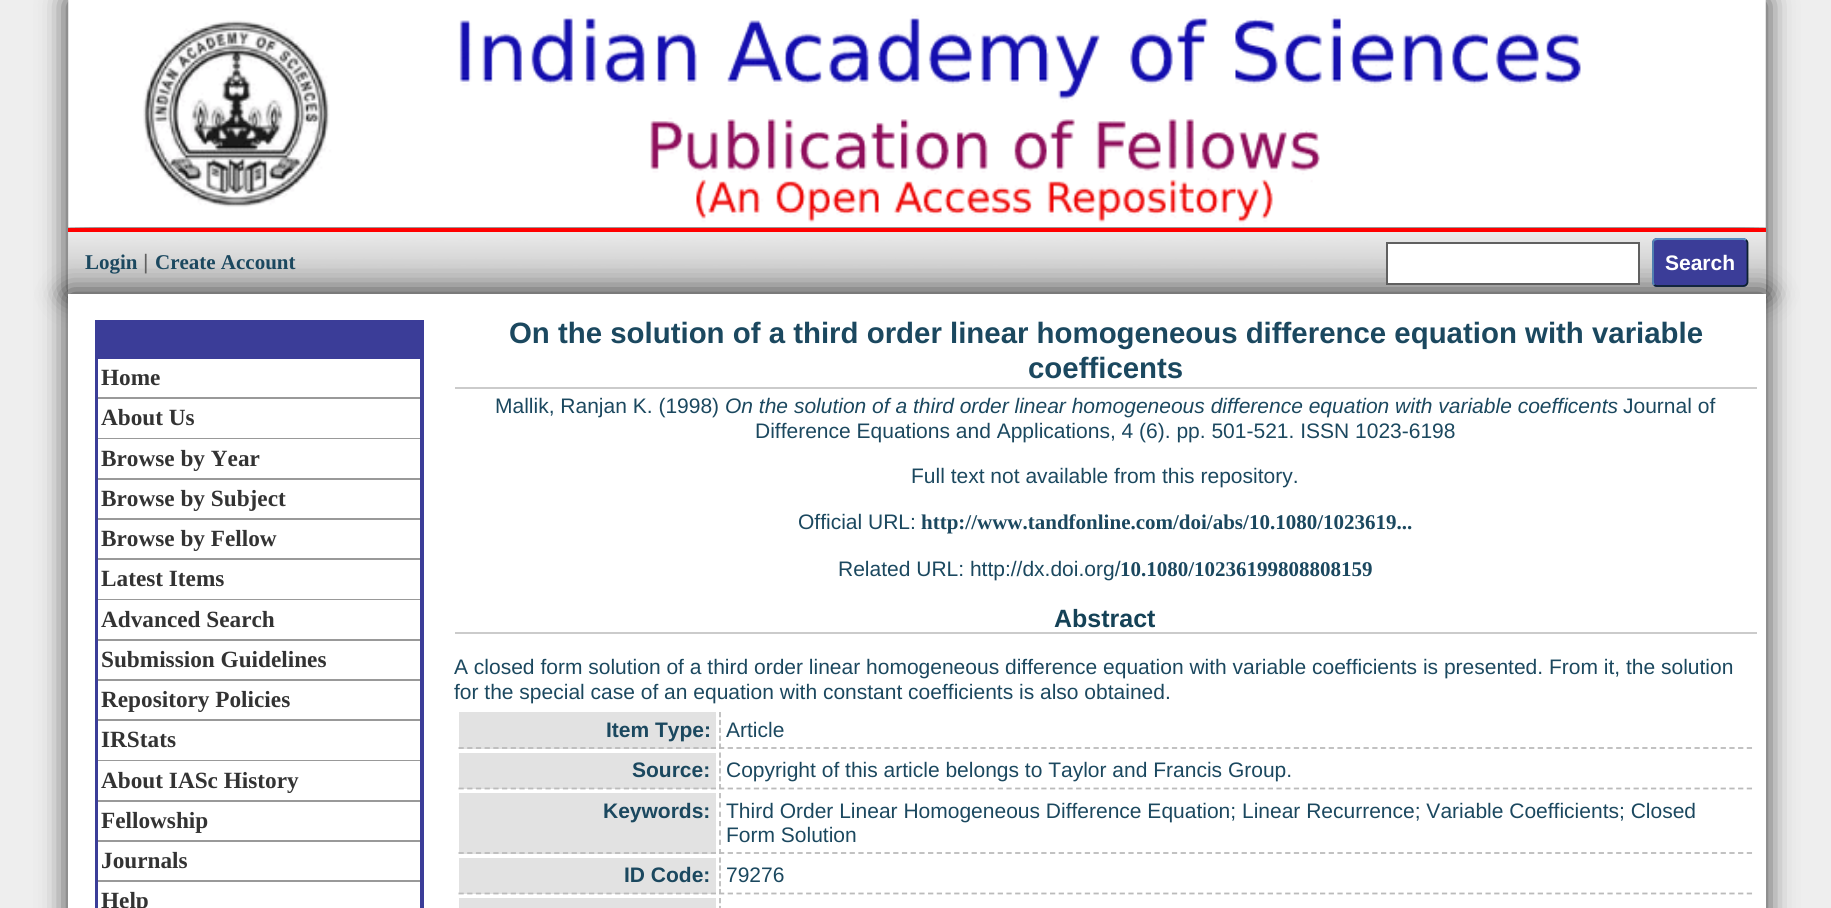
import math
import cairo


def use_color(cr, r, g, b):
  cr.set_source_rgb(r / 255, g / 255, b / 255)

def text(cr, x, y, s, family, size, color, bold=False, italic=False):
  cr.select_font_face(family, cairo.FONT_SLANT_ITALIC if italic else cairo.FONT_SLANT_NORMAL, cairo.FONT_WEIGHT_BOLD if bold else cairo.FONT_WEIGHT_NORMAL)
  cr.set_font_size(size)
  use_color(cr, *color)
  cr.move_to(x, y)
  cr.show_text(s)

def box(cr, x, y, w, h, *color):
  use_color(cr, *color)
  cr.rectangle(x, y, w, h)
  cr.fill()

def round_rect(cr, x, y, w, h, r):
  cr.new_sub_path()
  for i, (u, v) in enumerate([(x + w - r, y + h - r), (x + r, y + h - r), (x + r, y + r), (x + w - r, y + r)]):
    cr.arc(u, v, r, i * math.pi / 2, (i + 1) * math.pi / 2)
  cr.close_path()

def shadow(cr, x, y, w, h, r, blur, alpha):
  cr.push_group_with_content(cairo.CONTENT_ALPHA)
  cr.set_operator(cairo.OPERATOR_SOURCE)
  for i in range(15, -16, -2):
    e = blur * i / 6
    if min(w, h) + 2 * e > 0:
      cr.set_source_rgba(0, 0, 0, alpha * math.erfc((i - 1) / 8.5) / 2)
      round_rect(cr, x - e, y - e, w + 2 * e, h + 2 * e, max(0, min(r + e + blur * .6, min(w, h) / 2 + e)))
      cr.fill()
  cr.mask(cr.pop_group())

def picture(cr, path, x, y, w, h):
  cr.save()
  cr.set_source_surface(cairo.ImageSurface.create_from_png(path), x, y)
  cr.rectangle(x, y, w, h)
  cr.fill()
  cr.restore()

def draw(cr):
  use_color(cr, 238, 238, 238)
  cr.paint()
  use_color(cr, 0, 0, 0)
  shadow(cr, 68, 0, 1698, 294, 0, 14, 0.8)
  picture(cr, "img_01.png", 68, 0, 1698, 228)
  box(cr, 68, 232, 1698, 62, 204, 204, 204)
  picture(cr, "img_02.png", 68, 232, 1698, 37)
  box(cr, 68, 228, 1698, 4, 255, 0, 0)
  use_color(cr, 0, 0, 0)
  shadow(cr, 68, 294, 1698, 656, 0, 14, 0.8)
  use_color(cr, 255, 255, 255)
  cr.rectangle(1387, 243, 252, 41)
  cr.fill_preserve()
  use_color(cr, 96, 96, 96)
  cr.stroke()
  use_color(cr, 59, 61, 152)
  round_rect(cr, 1652, 238, 96, 49, 5)
  cr.fill()
  cr.new_path()
  cr.move_to(1654, 240)
  cr.line_to(1657, 239)
  cr.line_to(1743.5, 239)
  cr.line_to(1746, 240)
  use_color(cr, 91, 151, 199)
  cr.set_line_width(1.8)
  cr.stroke()
  cr.new_path()
  cr.move_to(1746, 240)
  cr.curve_to(1747, 241, 1747.5, 242, 1747.5, 243)
  cr.line_to(1747.5, 282)
  cr.curve_to(1747.5, 283, 1747, 284, 1746, 285)
  cr.curve_to(1745.5, 285.5, 1744, 286, 1743, 286)
  cr.line_to(1657, 286)
  cr.curve_to(1656, 286, 1655, 285.5, 1654, 285)
  use_color(cr, 13, 33, 49)
  cr.stroke()
  cr.new_path()
  cr.move_to(1654, 285)
  cr.curve_to(1653.5, 284, 1653, 283, 1653, 282)
  cr.line_to(1653, 243)
  cr.curve_to(1653, 242, 1653.5, 241, 1654, 240)
  use_color(cr, 82, 135, 179)
  cr.stroke()
  box(cr, 68, 294, 1698, 614, 255, 255, 255)
  box(cr, 95, 320, 329, 588, 59, 61, 152)
  box(cr, 98, 359, 322, 38, 255, 255, 255)
  box(cr, 98, 397, 322, 2, 153, 153, 153)
  box(cr, 98, 399, 322, 39, 255, 255, 255)
  box(cr, 98, 438, 322, 1, 153, 153, 153)
  box(cr, 98, 439, 322, 39, 255, 255, 255)
  box(cr, 98, 478, 322, 2, 153, 153, 153)
  box(cr, 98, 480, 322, 38, 255, 255, 255)
  box(cr, 98, 518, 322, 2, 153, 153, 153)
  box(cr, 98, 520, 322, 38, 255, 255, 255)
  box(cr, 98, 558, 322, 2, 153, 153, 153)
  box(cr, 98, 560, 322, 39, 255, 255, 255)
  box(cr, 98, 599, 322, 1, 153, 153, 153)
  box(cr, 98, 600, 322, 39, 255, 255, 255)
  box(cr, 98, 639, 322, 2, 153, 153, 153)
  box(cr, 98, 641, 322, 38, 255, 255, 255)
  box(cr, 98, 679, 322, 2, 153, 153, 153)
  box(cr, 98, 681, 322, 38, 255, 255, 255)
  box(cr, 98, 719, 322, 2, 153, 153, 153)
  box(cr, 98, 721, 322, 39, 255, 255, 255)
  box(cr, 98, 760, 322, 1, 153, 153, 153)
  box(cr, 98, 761, 322, 39, 255, 255, 255)
  box(cr, 98, 800, 322, 2, 153, 153, 153)
  box(cr, 98, 802, 322, 38, 255, 255, 255)
  box(cr, 98, 840, 322, 2, 153, 153, 153)
  box(cr, 98, 842, 322, 38, 255, 255, 255)
  box(cr, 98, 880, 322, 2, 153, 153, 153)
  box(cr, 98, 882, 322, 26, 255, 255, 255)
  box(cr, 455, 387, 1302, 2, 203, 203, 203)
  box(cr, 455, 632, 1302, 2, 203, 203, 203)
  box(cr, 459, 712, 257, 37, 226, 226, 226)
  cr.new_path()
  cr.move_to(458.5, 748)
  cr.line_to(716, 748)
  use_color(cr, 187, 187, 187)
  cr.set_dash([5.25, 3.45])
  cr.stroke()
  cr.new_path()
  cr.move_to(719, 748)
  cr.line_to(1753.5, 748)
  cr.set_dash([5.25, 3.46])
  cr.stroke()
  cr.new_path()
  cr.move_to(720, 712)
  cr.line_to(720, 749)
  cr.set_dash([5.25, 2.62])
  cr.stroke()
  box(cr, 459, 753, 257, 36, 226, 226, 226)
  cr.new_path()
  cr.move_to(458.5, 788.5)
  cr.line_to(716, 788.5)
  use_color(cr, 187, 187, 187)
  cr.set_dash([5.25, 3.45])
  cr.stroke()
  cr.new_path()
  cr.move_to(719, 788.5)
  cr.line_to(1753.5, 788.5)
  cr.set_dash([5.25, 3.46])
  cr.stroke()
  cr.new_path()
  cr.move_to(720, 752.5)
  cr.line_to(720, 789)
  cr.set_dash([5.25, 2.62])
  cr.stroke()
  box(cr, 459, 793, 257, 61, 226, 226, 226)
  cr.new_path()
  cr.move_to(458.5, 853)
  cr.line_to(716, 853)
  use_color(cr, 187, 187, 187)
  cr.set_dash([5.25, 3.45])
  cr.stroke()
  cr.new_path()
  cr.move_to(719, 853)
  cr.line_to(1753.5, 853)
  cr.set_dash([5.25, 3.46])
  cr.stroke()
  cr.new_path()
  cr.move_to(720, 793)
  cr.line_to(720, 854)
  cr.set_dash([5.25, 4.08])
  cr.stroke()
  box(cr, 459, 858, 257, 36, 226, 226, 226)
  cr.new_path()
  cr.move_to(458.5, 893.5)
  cr.line_to(716, 893.5)
  use_color(cr, 187, 187, 187)
  cr.set_dash([5.25, 3.45])
  cr.stroke()
  cr.new_path()
  cr.move_to(719, 893.5)
  cr.line_to(1753.5, 893.5)
  cr.set_dash([5.25, 3.46])
  cr.stroke()
  cr.new_path()
  cr.move_to(720, 857.5)
  cr.line_to(720, 894)
  cr.set_dash([5.25, 2.62])
  cr.stroke()
  box(cr, 459, 898, 257, 10, 226, 226, 226)
  cr.new_path()
  cr.move_to(720, 898)
  cr.line_to(720, 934.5)
  use_color(cr, 187, 187, 187)
  cr.stroke()
  text(cr, 85, 269, "Login", "Liberation Serif", 21, (27, 72, 95), bold=True)
  text(cr, 143, 269, "|", "Liberation Sans", 21, (96, 96, 96))
  text(cr, 155, 269, "Create Account", "Liberation Serif", 21, (27, 72, 95), bold=True)
  text(cr, 1665, 270, "Search", "Liberation Sans", 21, (255, 255, 255), bold=True)
  text(cr, 101, 385, "Home", "Liberation Serif", 23.25, (51, 51, 51), bold=True)
  text(cr, 101, 425, "About Us", "Liberation Serif", 23.25, (51, 51, 51), bold=True)
  text(cr, 101, 466, "Browse by Year", "Liberation Serif", 23.25, (51, 51, 51), bold=True)
  text(cr, 101, 506, "Browse by Subject", "Liberation Serif", 23.25, (51, 51, 51), bold=True)
  text(cr, 101, 546, "Browse by Fellow", "Liberation Serif", 23.25, (51, 51, 51), bold=True)
  text(cr, 101, 586, "Latest Items", "Liberation Serif", 23.25, (51, 51, 51), bold=True)
  text(cr, 101, 627, "Advanced Search", "Liberation Serif", 23.25, (51, 51, 51), bold=True)
  text(cr, 101, 667, "Submission Guidelines", "Liberation Serif", 23.25, (51, 51, 51), bold=True)
  text(cr, 101, 707, "Repository Policies", "Liberation Serif", 23.25, (51, 51, 51), bold=True)
  text(cr, 101, 747, "IRStats", "Liberation Serif", 23.25, (51, 51, 51), bold=True)
  text(cr, 101, 788, "About IASc History", "Liberation Serif", 23.25, (51, 51, 51), bold=True)
  text(cr, 101, 828, "Fellowship", "Liberation Serif", 23.25, (51, 51, 51), bold=True)
  text(cr, 101, 868, "Journals", "Liberation Serif", 23.25, (51, 51, 51), bold=True)
  text(cr, 101, 908, "Help", "Liberation Serif", 23.25, (51, 51, 51), bold=True)
  text(cr, 509, 343, "On the solution of a third order linear homogeneous difference equation with variable", "Liberation Sans", 29.4, (27, 72, 95), bold=True)
  text(cr, 1028, 378, "coefficents", "Liberation Sans", 29.4, (27, 72, 95), bold=True)
  text(cr, 495, 413, "Mallik, Ranjan K. (1998)", "Liberation Sans", 21, (27, 72, 95))
  text(cr, 725, 413, "On the solution of a third order linear homogeneous difference equation with variable coefficents", "Liberation Sans", 21, (27, 72, 95), italic=True)
  text(cr, 1623, 413, "Journal of", "Liberation Sans", 21, (27, 72, 95))
  text(cr, 755, 438, "Difference Equations and Applications, 4 (6). pp. 501-521. ISSN 1023-6198", "Liberation Sans", 21, (27, 72, 95))
  text(cr, 911, 483, "Full text not available from this repository.", "Liberation Sans", 21, (27, 72, 95))
  text(cr, 798, 529, "Official URL:", "Liberation Sans", 21, (27, 72, 95))
  text(cr, 921, 529, "http://www.tandfonline.com/doi/abs/10.1080/1023619...", "Liberation Serif", 21, (27, 72, 95), bold=True)
  text(cr, 838, 576, "Related URL: http://dx.doi.org/", "Liberation Sans", 21, (27, 72, 95))
  text(cr, 1120, 576, "10.1080/10236199808808159", "Liberation Serif", 21, (27, 72, 95), bold=True)
  text(cr, 1054, 627, "Abstract", "Liberation Sans", 25, (21, 66, 87), bold=True)
  text(cr, 454, 674, "A closed form solution of a third order linear homogeneous difference equation with variable coefficients is presented. From it, the solution", "Liberation Sans", 21, (27, 72, 95))
  text(cr, 454, 699, "for the special case of an equation with constant coefficients is also obtained.", "Liberation Sans", 21, (27, 72, 95))
  text(cr, 606, 737, "Item Type:", "Liberation Sans", 21, (27, 72, 95), bold=True)
  text(cr, 726, 737, "Article", "Liberation Sans", 21, (27, 72, 95))
  text(cr, 632, 777, "Source:", "Liberation Sans", 21, (27, 72, 95), bold=True)
  text(cr, 726, 777, "Copyright of this article belongs to Taylor and Francis Group.", "Liberation Sans", 21, (27, 72, 95))
  text(cr, 603, 818, "Keywords:", "Liberation Sans", 21, (27, 72, 95), bold=True)
  text(cr, 726, 818, "Third Order Linear Homogeneous Difference Equation; Linear Recurrence; Variable Coefficients; Closed", "Liberation Sans", 21, (27, 72, 95))
  text(cr, 726, 842, "Form Solution", "Liberation Sans", 21, (27, 72, 95))
  text(cr, 624, 882, "ID Code:", "Liberation Sans", 21, (27, 72, 95), bold=True)
  text(cr, 726, 882, "79276", "Liberation Sans", 21, (27, 72, 95))


surface = cairo.ImageSurface(cairo.FORMAT_RGB24, 1831, 908)
cr = cairo.Context(surface)
options = cairo.FontOptions()
options.set_hint_metrics(cairo.HINT_METRICS_OFF)
options.set_hint_style(cairo.HINT_STYLE_NONE)
cr.set_font_options(options)
cr.set_miter_limit(4)
draw(cr)
surface.write_to_png("out.png")
